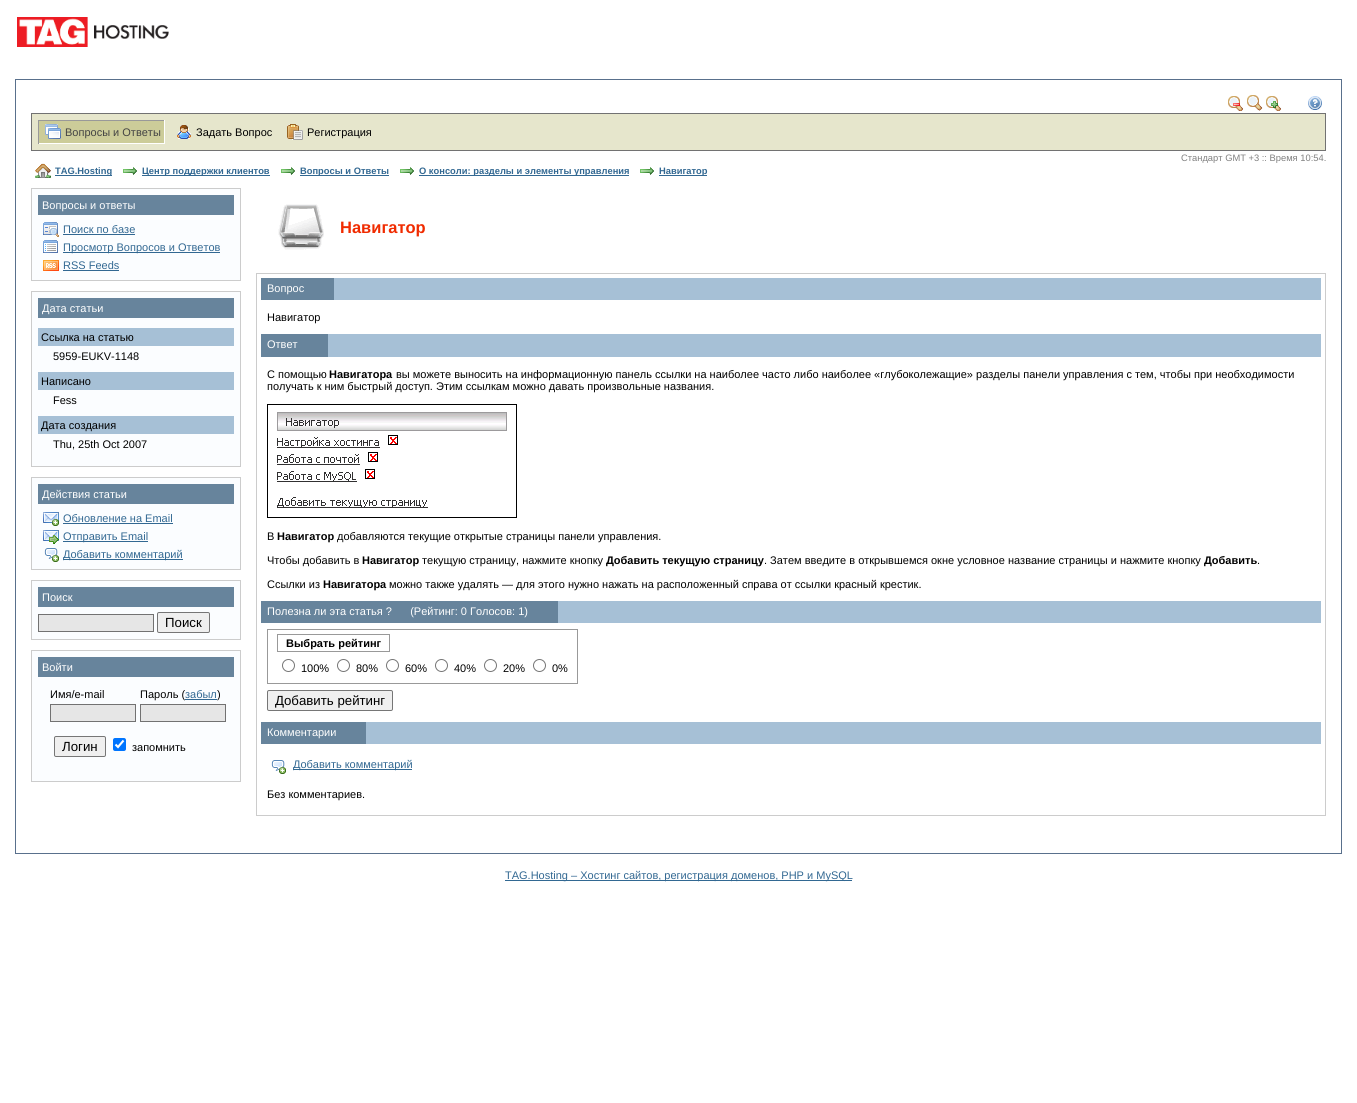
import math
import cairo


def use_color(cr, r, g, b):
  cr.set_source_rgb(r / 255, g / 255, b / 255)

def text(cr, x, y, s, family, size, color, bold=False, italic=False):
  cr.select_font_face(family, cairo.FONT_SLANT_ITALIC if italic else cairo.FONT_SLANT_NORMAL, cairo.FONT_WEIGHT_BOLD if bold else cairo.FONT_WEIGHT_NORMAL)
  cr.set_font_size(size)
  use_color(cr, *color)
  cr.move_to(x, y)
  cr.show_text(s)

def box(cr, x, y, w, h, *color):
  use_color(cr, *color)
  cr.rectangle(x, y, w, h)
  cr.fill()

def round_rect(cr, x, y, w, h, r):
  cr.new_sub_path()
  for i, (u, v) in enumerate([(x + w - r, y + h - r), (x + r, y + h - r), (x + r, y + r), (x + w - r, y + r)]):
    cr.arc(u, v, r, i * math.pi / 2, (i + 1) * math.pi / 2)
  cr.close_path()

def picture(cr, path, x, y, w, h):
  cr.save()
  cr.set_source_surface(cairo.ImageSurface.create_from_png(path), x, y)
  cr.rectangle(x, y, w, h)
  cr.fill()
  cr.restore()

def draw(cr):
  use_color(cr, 255, 255, 255)
  cr.paint()
  picture(cr, "img_01.png", 17, 17, 152, 30)
  cr.rectangle(15.5, 79.5, 1326, 774)
  use_color(cr, 89, 112, 140)
  cr.set_line_width(1)
  cr.stroke()
  picture(cr, "img_02.png", 1228, 96, 15, 15)
  picture(cr, "img_03.png", 1247, 95, 16, 16)
  picture(cr, "img_04.png", 1266, 96, 15, 15)
  picture(cr, "img_05.png", 1308, 96, 14, 14)
  use_color(cr, 230, 230, 204)
  cr.rectangle(31.5, 113.5, 1294, 37)
  cr.fill_preserve()
  use_color(cr, 114, 114, 114)
  cr.stroke()
  box(cr, 39, 121, 125, 22, 204, 204, 153)
  picture(cr, "img_06.png", 45, 124, 16, 15)
  box(cr, 38, 120, 127, 1, 153, 153, 153)
  box(cr, 164, 120, 1, 24, 255, 255, 255)
  box(cr, 38, 143, 127, 1, 255, 255, 255)
  box(cr, 38, 120, 1, 24, 153, 153, 153)
  picture(cr, "img_07.png", 177, 125, 14, 14)
  picture(cr, "img_08.png", 287, 124, 16, 16)
  picture(cr, "img_09.png", 35, 163, 16, 15)
  box(cr, 55, 175, 57, 1, 50, 104, 146)
  picture(cr, "img_10.png", 123, 167, 14, 8)
  box(cr, 142, 175, 128, 1, 50, 104, 146)
  picture(cr, "img_10.png", 281, 167, 14, 8)
  box(cr, 300, 175, 89, 1, 50, 104, 146)
  picture(cr, "img_10.png", 400, 167, 14, 8)
  box(cr, 419, 175, 210, 1, 50, 104, 146)
  picture(cr, "img_10.png", 640, 167, 14, 8)
  box(cr, 659, 175, 48, 1, 50, 104, 146)
  use_color(cr, 251, 253, 255)
  cr.rectangle(31.5, 188.5, 209, 92)
  cr.fill_preserve()
  use_color(cr, 204, 204, 204)
  cr.stroke()
  box(cr, 38, 195, 196, 20, 103, 132, 156)
  picture(cr, "img_11.png", 43, 222, 16, 15)
  box(cr, 63, 234, 72, 1, 50, 104, 146)
  picture(cr, "img_12.png", 43, 240, 15, 13)
  box(cr, 63, 252, 157, 1, 50, 104, 146)
  picture(cr, "img_13.png", 43, 260, 16, 11)
  box(cr, 63, 270, 56, 1, 50, 104, 146)
  use_color(cr, 251, 253, 255)
  cr.rectangle(31.5, 291.5, 209, 175)
  cr.fill_preserve()
  use_color(cr, 204, 204, 204)
  cr.stroke()
  box(cr, 38, 298, 196, 20, 103, 132, 156)
  box(cr, 38, 328, 196, 18, 166, 192, 214)
  box(cr, 38, 372, 196, 18, 166, 192, 214)
  box(cr, 38, 416, 196, 18, 166, 192, 214)
  use_color(cr, 251, 253, 255)
  cr.rectangle(31.5, 477.5, 209, 92)
  cr.fill_preserve()
  use_color(cr, 204, 204, 204)
  cr.stroke()
  box(cr, 38, 484, 196, 20, 103, 132, 156)
  picture(cr, "img_14.png", 43, 512, 16, 14)
  box(cr, 63, 523, 110, 1, 50, 104, 146)
  picture(cr, "img_15.png", 43, 530, 16, 14)
  box(cr, 63, 541, 85, 1, 50, 104, 146)
  picture(cr, "img_16.png", 44, 548, 15, 14)
  box(cr, 63, 559, 120, 1, 50, 104, 146)
  use_color(cr, 251, 253, 255)
  cr.rectangle(31.5, 580.5, 209, 59)
  cr.fill_preserve()
  use_color(cr, 204, 204, 204)
  cr.stroke()
  box(cr, 38, 587, 196, 20, 103, 132, 156)
  use_color(cr, 230, 230, 230)
  cr.rectangle(38.5, 614.5, 115, 17)
  cr.fill_preserve()
  use_color(cr, 114, 114, 114)
  cr.stroke()
  use_color(cr, 239, 239, 239)
  round_rect(cr, 157.5, 612.5, 52, 20, 1.5)
  cr.fill_preserve()
  use_color(cr, 118, 118, 118)
  cr.stroke()
  use_color(cr, 251, 253, 255)
  cr.rectangle(31.5, 650.5, 209, 131)
  cr.fill_preserve()
  use_color(cr, 204, 204, 204)
  cr.stroke()
  box(cr, 38, 657, 196, 20, 103, 132, 156)
  use_color(cr, 230, 230, 230)
  cr.rectangle(50.5, 704.5, 85, 17)
  cr.fill_preserve()
  use_color(cr, 114, 114, 114)
  cr.stroke()
  use_color(cr, 230, 230, 230)
  cr.rectangle(140.5, 704.5, 85, 17)
  cr.fill_preserve()
  use_color(cr, 114, 114, 114)
  cr.stroke()
  use_color(cr, 239, 239, 239)
  round_rect(cr, 54.5, 736.5, 51, 20, 1.5)
  cr.fill_preserve()
  use_color(cr, 118, 118, 118)
  cr.stroke()
  use_color(cr, 0, 117, 255)
  round_rect(cr, 113, 738, 13, 13, 2)
  cr.fill()
  cr.new_path()
  cr.move_to(115.5, 744.5)
  cr.line_to(118, 747)
  cr.line_to(123.5, 740.5)
  use_color(cr, 255, 255, 255)
  cr.set_line_width(2.1)
  cr.stroke()
  picture(cr, "img_17.png", 278, 204, 46, 46)
  cr.rectangle(256.5, 273.5, 1069, 542)
  use_color(cr, 204, 204, 204)
  cr.set_line_width(1)
  cr.stroke()
  box(cr, 334, 278, 987, 22, 166, 192, 214)
  box(cr, 261, 278, 73, 22, 103, 132, 156)
  box(cr, 328, 334, 993, 23, 166, 192, 214)
  box(cr, 261, 334, 67, 23, 103, 132, 156)
  cr.rectangle(267.5, 404.5, 249, 113)
  use_color(cr, 0, 0, 0)
  cr.stroke()
  picture(cr, "img_18.png", 277, 412, 230, 96)
  box(cr, 558, 601, 763, 22, 166, 192, 214)
  box(cr, 261, 601, 297, 22, 103, 132, 156)
  cr.rectangle(277.5, 634.5, 112, 17)
  use_color(cr, 153, 153, 153)
  cr.stroke()
  cr.rectangle(267.5, 629.5, 310, 54)
  cr.stroke()
  cr.arc(288.5, 665.5, 6, 0, 2 * math.pi)
  use_color(cr, 118, 118, 118)
  cr.stroke()
  cr.arc(343.5, 665.5, 6, 0, 2 * math.pi)
  cr.stroke()
  cr.arc(392.5, 665.5, 6, 0, 2 * math.pi)
  cr.stroke()
  cr.arc(441.5, 665.5, 6, 0, 2 * math.pi)
  cr.stroke()
  cr.arc(490.5, 665.5, 6, 0, 2 * math.pi)
  cr.stroke()
  cr.arc(539.5, 665.5, 6, 0, 2 * math.pi)
  cr.stroke()
  use_color(cr, 239, 239, 239)
  round_rect(cr, 267.5, 690.5, 125, 20, 1.5)
  cr.fill_preserve()
  use_color(cr, 118, 118, 118)
  cr.stroke()
  box(cr, 366, 722, 955, 22, 166, 192, 214)
  box(cr, 261, 722, 105, 22, 103, 132, 156)
  picture(cr, "img_19.png", 271, 760, 15, 14)
  box(cr, 293, 769, 119, 1, 50, 104, 146)
  box(cr, 505, 880, 347, 1, 50, 104, 146)
  text(cr, 65, 136, "Вопросы и Ответы", "Liberation Sans", 11, (68, 68, 68))
  text(cr, 196, 136, "Задать Вопрос", "Liberation Sans", 11, (0, 0, 0))
  text(cr, 307, 136, "Регистрация", "Liberation Sans", 11, (0, 0, 0))
  text(cr, 1181, 161, "Стандарт GMT +3 :: Время 10:54.", "Liberation Sans", 9.35, (128, 128, 128))
  text(cr, 55, 174, "TAG.Hosting", "Liberation Sans", 9.35, (50, 104, 146), bold=True)
  text(cr, 142, 174, "Центр поддержки клиентов", "Liberation Sans", 9.35, (50, 104, 146), bold=True)
  text(cr, 300, 174, "Вопросы и Ответы", "Liberation Sans", 9.35, (50, 104, 146), bold=True)
  text(cr, 419, 174, "О консоли: разделы и элементы управления", "Liberation Sans", 9.35, (50, 104, 146), bold=True)
  text(cr, 659, 174, "Навигатор", "Liberation Sans", 9.35, (50, 104, 146), bold=True)
  text(cr, 42, 209, "Вопросы и ответы", "Liberation Sans", 11, (255, 255, 255))
  text(cr, 63, 233, "Поиск по базе", "Liberation Sans", 11, (50, 104, 146))
  text(cr, 63, 251, "Просмотр Вопросов и Ответов", "Liberation Sans", 11, (50, 104, 146))
  text(cr, 63, 269, "RSS Feeds", "Liberation Sans", 11, (50, 104, 146))
  text(cr, 42, 312, "Дата статьи", "Liberation Sans", 11, (255, 255, 255))
  text(cr, 41, 341, "Ссылка на статью", "Liberation Sans", 11, (0, 0, 0))
  text(cr, 53, 360, "5959-EUKV-1148", "Liberation Sans", 11, (0, 0, 0))
  text(cr, 41, 385, "Написано", "Liberation Sans", 11, (0, 0, 0))
  text(cr, 53, 404, "Fess", "Liberation Sans", 11, (0, 0, 0))
  text(cr, 41, 429, "Дата создания", "Liberation Sans", 11, (0, 0, 0))
  text(cr, 53, 448, "Thu, 25th Oct 2007", "Liberation Sans", 11, (0, 0, 0))
  text(cr, 42, 498, "Действия статьи", "Liberation Sans", 11, (255, 255, 255))
  text(cr, 63, 522, "Обновление на Email", "Liberation Sans", 11, (50, 104, 146))
  text(cr, 63, 540, "Отправить Email", "Liberation Sans", 11, (50, 104, 146))
  text(cr, 63, 558, "Добавить комментарий", "Liberation Sans", 11, (50, 104, 146))
  text(cr, 42, 601, "Поиск", "Liberation Sans", 11, (255, 255, 255))
  text(cr, 165, 627, "Поиск", "Liberation Sans", 13.25, (0, 0, 0))
  text(cr, 42, 671, "Войти", "Liberation Sans", 11, (255, 255, 255))
  text(cr, 50, 698, "Имя/e-mail", "Liberation Sans", 11, (0, 0, 0))
  text(cr, 140, 698, "Пароль (", "Liberation Sans", 11, (0, 0, 0))
  text(cr, 185, 698, "забыл", "Liberation Sans", 11, (50, 104, 146))
  box(cr, 185, 699, 32, 1, 50, 104, 146)
  text(cr, 217, 698, ")", "Liberation Sans", 11, (0, 0, 0))
  text(cr, 62, 751, "Логин", "Liberation Sans", 13.25, (0, 0, 0))
  text(cr, 132, 751, "запомнить", "Liberation Sans", 11, (0, 0, 0))
  text(cr, 340, 233, "Навигатор", "Liberation Sans", 16.5, (240, 43, 0), bold=True)
  text(cr, 267, 292, "Вопрос", "Liberation Sans", 11, (255, 255, 255))
  text(cr, 267, 321, "Навигатор", "Liberation Sans", 11, (0, 0, 0))
  text(cr, 267, 348, "Ответ", "Liberation Sans", 11, (255, 255, 255))
  text(cr, 267, 378, "С помощью", "Liberation Sans", 11, (0, 0, 0))
  text(cr, 329, 378, "Навигатора", "Liberation Sans", 11, (0, 0, 0), bold=True)
  text(cr, 396, 378, "вы можете выносить на информационную панель ссылки на наиболее часто либо наиболее «глубоколежащие» разделы панели управления с тем, чтобы при необходимости", "Liberation Sans", 11, (0, 0, 0))
  text(cr, 267, 390, "получать к ним быстрый доступ. Этим ссылкам можно давать произвольные названия.", "Liberation Sans", 11, (0, 0, 0))
  text(cr, 267, 540, "В", "Liberation Sans", 11, (0, 0, 0))
  text(cr, 277, 540, "Навигатор", "Liberation Sans", 11, (0, 0, 0), bold=True)
  text(cr, 337, 540, "добавляются текущие открытые cтраницы панели управления.", "Liberation Sans", 11, (0, 0, 0))
  text(cr, 267, 564, "Чтобы добавить в", "Liberation Sans", 11, (0, 0, 0))
  text(cr, 362, 564, "Навигатор", "Liberation Sans", 11, (0, 0, 0), bold=True)
  text(cr, 422, 564, "текущую страницу, нажмите кнопку", "Liberation Sans", 11, (0, 0, 0))
  text(cr, 606, 564, "Добавить текущую страницу", "Liberation Sans", 11, (0, 0, 0), bold=True)
  text(cr, 764, 564, ". Затем введите в открывшемся окне условное название страницы и нажмите кнопку", "Liberation Sans", 11, (0, 0, 0))
  text(cr, 1204, 564, "Добавить", "Liberation Sans", 11, (0, 0, 0), bold=True)
  text(cr, 1257, 564, ".", "Liberation Sans", 11, (0, 0, 0))
  text(cr, 267, 588, "Ссылки из", "Liberation Sans", 11, (0, 0, 0))
  text(cr, 323, 588, "Навигатора", "Liberation Sans", 11, (0, 0, 0), bold=True)
  text(cr, 389, 588, "можно также удалять — для этого нужно нажать на расположенный справа от ссылки красный крестик.", "Liberation Sans", 11, (0, 0, 0))
  text(cr, 267, 615, "Полезна ли эта статья ?      (Рейтинг: 0 Голосов: 1)", "Liberation Sans", 11, (255, 255, 255))
  text(cr, 286, 647, "Выбрать рейтинг", "Liberation Sans", 11, (0, 0, 0), bold=True)
  text(cr, 301, 672, "100%", "Liberation Sans", 11, (0, 0, 0))
  text(cr, 356, 672, "80%", "Liberation Sans", 11, (0, 0, 0))
  text(cr, 405, 672, "60%", "Liberation Sans", 11, (0, 0, 0))
  text(cr, 454, 672, "40%", "Liberation Sans", 11, (0, 0, 0))
  text(cr, 503, 672, "20%", "Liberation Sans", 11, (0, 0, 0))
  text(cr, 552, 672, "0%", "Liberation Sans", 11, (0, 0, 0))
  text(cr, 275, 705, "Добавить рейтинг", "Liberation Sans", 13.25, (0, 0, 0))
  text(cr, 267, 736, "Комментарии", "Liberation Sans", 11, (255, 255, 255))
  text(cr, 293, 768, "Добавить комментарий", "Liberation Sans", 11, (50, 104, 146))
  text(cr, 267, 798, "Без комментариев.", "Liberation Sans", 11, (0, 0, 0))
  text(cr, 505, 879, "TAG.Hosting – Хостинг сайтов, регистрация доменов, PHP и MySQL", "Liberation Sans", 11, (50, 104, 146))


surface = cairo.ImageSurface(cairo.FORMAT_RGB24, 1357, 1103)
cr = cairo.Context(surface)
options = cairo.FontOptions()
options.set_hint_metrics(cairo.HINT_METRICS_OFF)
options.set_hint_style(cairo.HINT_STYLE_NONE)
cr.set_font_options(options)
cr.set_miter_limit(4)
draw(cr)
surface.write_to_png("out.png")
